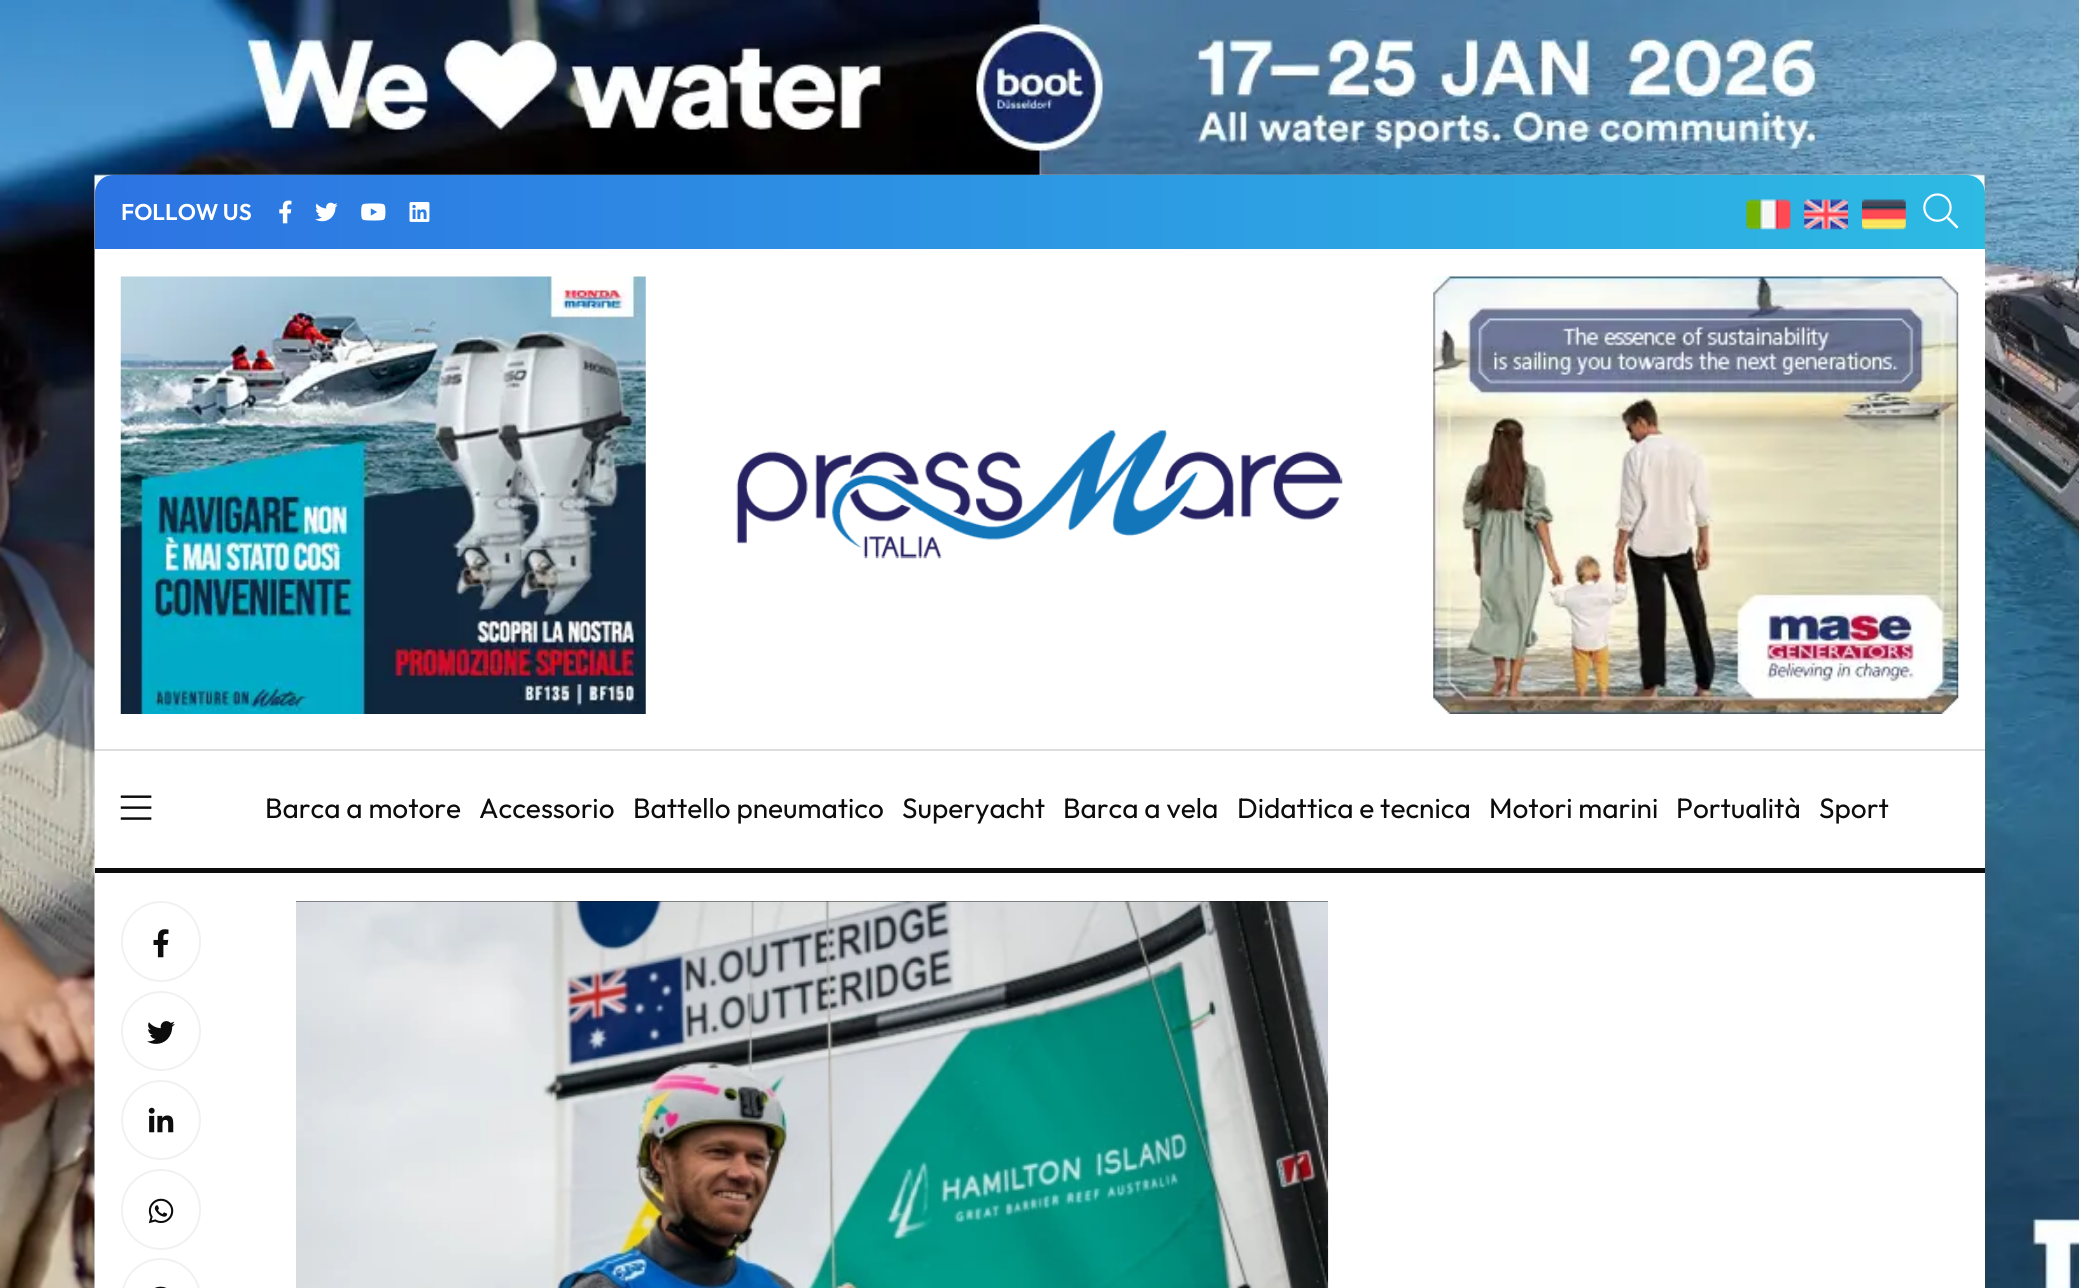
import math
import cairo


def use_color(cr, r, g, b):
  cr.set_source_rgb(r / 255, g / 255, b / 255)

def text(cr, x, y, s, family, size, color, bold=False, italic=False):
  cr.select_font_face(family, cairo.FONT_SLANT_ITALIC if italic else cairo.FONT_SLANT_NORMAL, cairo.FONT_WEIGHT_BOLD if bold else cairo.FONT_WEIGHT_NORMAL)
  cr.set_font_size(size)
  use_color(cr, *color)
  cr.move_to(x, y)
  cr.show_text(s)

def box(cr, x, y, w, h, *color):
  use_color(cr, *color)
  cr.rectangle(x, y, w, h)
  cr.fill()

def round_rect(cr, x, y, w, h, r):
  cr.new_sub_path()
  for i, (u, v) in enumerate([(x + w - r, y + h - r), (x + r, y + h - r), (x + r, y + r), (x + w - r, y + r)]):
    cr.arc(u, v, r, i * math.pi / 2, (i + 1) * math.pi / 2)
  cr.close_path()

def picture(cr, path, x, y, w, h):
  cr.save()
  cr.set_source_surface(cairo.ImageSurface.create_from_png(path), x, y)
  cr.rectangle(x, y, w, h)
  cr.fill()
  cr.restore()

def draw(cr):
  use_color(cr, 255, 255, 255)
  cr.paint()
  picture(cr, "img_01.png", 0, 0, 2079, 1288)
  use_color(cr, 255, 255, 255)
  cr.new_path()
  cr.move_to(113, 175)
  cr.line_to(1967, 175)
  cr.curve_to(1977, 175, 1985, 183, 1985, 193)
  cr.line_to(1985, 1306)
  cr.line_to(95, 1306)
  cr.line_to(95, 193)
  cr.curve_to(95, 183, 103, 175, 113, 175)
  cr.close_path()
  cr.fill()
  cr.new_path()
  cr.move_to(113, 175)
  cr.line_to(1967, 175)
  cr.curve_to(1977, 175, 1985, 183, 1985, 193)
  cr.line_to(1985, 751)
  cr.line_to(95, 751)
  cr.line_to(95, 193)
  cr.curve_to(95, 183, 103, 175, 113, 175)
  cr.close_path()
  cr.fill()
  box(cr, 95, 749, 1890, 2, 221, 221, 221)
  gradient = cairo.LinearGradient(95, 212, 1985, 212)
  gradient.add_color_stop_rgba(0.01, 0.176, 0.455, 0.89, 1)
  gradient.add_color_stop_rgba(0.47, 0.176, 0.584, 0.89, 1)
  gradient.add_color_stop_rgba(1, 0.176, 0.729, 0.89, 1)
  cr.set_source(gradient)
  cr.new_path()
  cr.move_to(113, 175)
  cr.line_to(1967, 175)
  cr.curve_to(1977, 175, 1985, 183, 1985, 193)
  cr.line_to(1985, 249)
  cr.line_to(95, 249)
  cr.line_to(95, 193)
  cr.curve_to(95, 183, 103, 175, 113, 175)
  cr.close_path()
  cr.fill()
  picture(cr, "img_02.png", 279, 200, 13, 24)
  picture(cr, "img_03.png", 315, 202, 23, 20)
  picture(cr, "img_04.png", 361, 203, 25, 18)
  picture(cr, "img_05.png", 409, 202, 21, 20)
  picture(cr, "img_06.png", 1746, 199, 45, 31)
  picture(cr, "img_07.png", 1804, 199, 44, 31)
  picture(cr, "img_08.png", 1862, 199, 44, 31)
  picture(cr, "img_09.png", 1923, 193, 36, 36)
  picture(cr, "img_10.png", 120, 276, 526, 438)
  picture(cr, "img_11.png", 736, 430, 607, 129)
  picture(cr, "img_12.png", 1433, 276, 526, 438)
  box(cr, 95, 868, 1890, 5, 12, 12, 12)
  picture(cr, "img_13.png", 120, 795, 32, 25)
  round_rect(cr, 122, 902, 78, 79, 39)
  use_color(cr, 241, 241, 241)
  cr.stroke()
  picture(cr, "img_14.png", 153, 929, 16, 29)
  cr.arc(161, 1031, 39, 0, 2 * math.pi)
  cr.stroke()
  picture(cr, "img_15.png", 147, 1021, 28, 23)
  cr.arc(161, 1120, 39, 0, 2 * math.pi)
  cr.stroke()
  picture(cr, "img_16.png", 148, 1107, 26, 26)
  round_rect(cr, 122, 1170, 78, 79, 39)
  cr.stroke()
  picture(cr, "img_17.png", 148, 1198, 26, 26)
  round_rect(cr, 122, 1259, 78, 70, 39)
  cr.stroke()
  picture(cr, "img_18.png", 155, 1286, 12, 2)
  box(cr, 296, 901, 1032, 1, 12, 12, 12)
  picture(cr, "img_19.png", 296, 901, 1033, 387)
  text(cr, 121, 220, "FOLLOW US", "Outfit Thin", 22.75, (255, 255, 255))
  text(cr, 265, 818, "Barca a motore", "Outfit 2 Thin", 28, (12, 12, 12))
  text(cr, 479, 818, "Accessorio", "Outfit 2 Thin", 28, (12, 12, 12))
  text(cr, 633, 818, "Battello pneumatico", "Outfit 2 Thin", 28, (12, 12, 12))
  text(cr, 902, 818, "Superyacht", "Outfit 2 Thin", 28, (12, 12, 12))
  text(cr, 1063, 818, "Barca a vela", "Outfit 2 Thin", 28, (12, 12, 12))
  text(cr, 1237, 818, "Didattica e tecnica", "Outfit 2 Thin", 28, (12, 12, 12))
  text(cr, 1489, 818, "Motori marini", "Outfit 2 Thin", 28, (12, 12, 12))
  text(cr, 1676, 818, "Portualità", "Outfit 2 Thin", 28, (12, 12, 12))
  text(cr, 1819, 818, "Sport", "Outfit 2 Thin", 28, (12, 12, 12))


surface = cairo.ImageSurface(cairo.FORMAT_RGB24, 2079, 1288)
cr = cairo.Context(surface)
options = cairo.FontOptions()
options.set_hint_metrics(cairo.HINT_METRICS_OFF)
options.set_hint_style(cairo.HINT_STYLE_NONE)
cr.set_font_options(options)
cr.set_miter_limit(4)
draw(cr)
surface.write_to_png("out.png")
